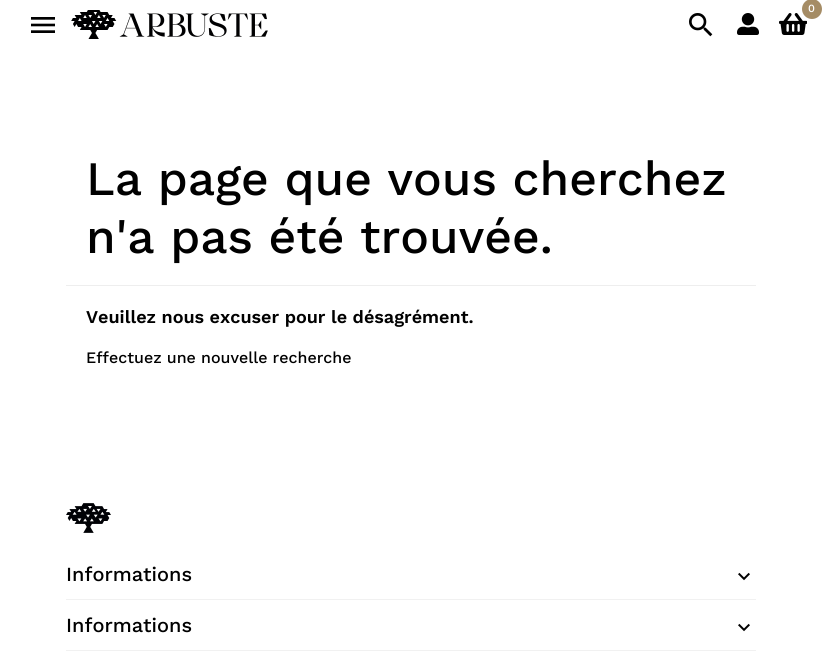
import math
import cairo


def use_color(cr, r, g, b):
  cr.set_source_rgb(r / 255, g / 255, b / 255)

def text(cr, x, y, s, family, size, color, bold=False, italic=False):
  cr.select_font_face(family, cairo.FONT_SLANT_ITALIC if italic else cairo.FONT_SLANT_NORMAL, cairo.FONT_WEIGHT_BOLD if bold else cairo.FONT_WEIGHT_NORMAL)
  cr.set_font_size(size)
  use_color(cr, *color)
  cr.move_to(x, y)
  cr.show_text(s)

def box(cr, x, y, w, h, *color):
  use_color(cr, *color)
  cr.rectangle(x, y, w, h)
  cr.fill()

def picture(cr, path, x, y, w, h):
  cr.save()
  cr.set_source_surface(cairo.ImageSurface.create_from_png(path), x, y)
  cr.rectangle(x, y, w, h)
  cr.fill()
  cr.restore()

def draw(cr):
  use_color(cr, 255, 255, 255)
  cr.paint()
  picture(cr, "img_01.png", 779, 13, 28, 22)
  use_color(cr, 165, 140, 101)
  cr.arc(812, 9, 10, 0, 2 * math.pi)
  cr.fill()
  picture(cr, "img_02.png", 689, 13, 24, 24)
  picture(cr, "img_03.png", 737, 13, 22, 22)
  picture(cr, "img_04.png", 31, 17, 24, 16)
  picture(cr, "img_05.png", 71, 10, 197, 29)
  box(cr, 66, 285, 690, 1, 238, 238, 238)
  picture(cr, "img_06.png", 66, 503, 45, 30)
  box(cr, 66, 599, 690, 1, 241, 241, 241)
  picture(cr, "img_07.png", 738, 572, 12, 9)
  box(cr, 66, 650, 690, 1, 241, 241, 241)
  picture(cr, "img_07.png", 738, 623, 12, 9)
  text(cr, 808, 12, "0", "Work Sans Medium", 11, (255, 255, 255))
  text(cr, 86, 195, "La page que vous cherchez", "Work Sans Medium", 48, (0, 0, 0))
  text(cr, 86, 253, "n'a pas été trouvée.", "Work Sans Medium", 48, (0, 0, 0))
  text(cr, 86, 323, "Veuillez nous excuser pour le désagrément.", "Work Sans SemiBold", 18, (0, 0, 0))
  text(cr, 86, 363, "Effectuez une nouvelle recherche", "Work Sans Medium", 16, (0, 0, 0))
  text(cr, 66, 581, "Informations", "Work Sans Medium", 20, (0, 0, 0))
  text(cr, 66, 632, "Informations", "Work Sans Medium", 20, (0, 0, 0))


surface = cairo.ImageSurface(cairo.FORMAT_RGB24, 822, 657)
cr = cairo.Context(surface)
options = cairo.FontOptions()
options.set_hint_metrics(cairo.HINT_METRICS_OFF)
options.set_hint_style(cairo.HINT_STYLE_NONE)
cr.set_font_options(options)
cr.set_miter_limit(4)
draw(cr)
surface.write_to_png("out.png")
